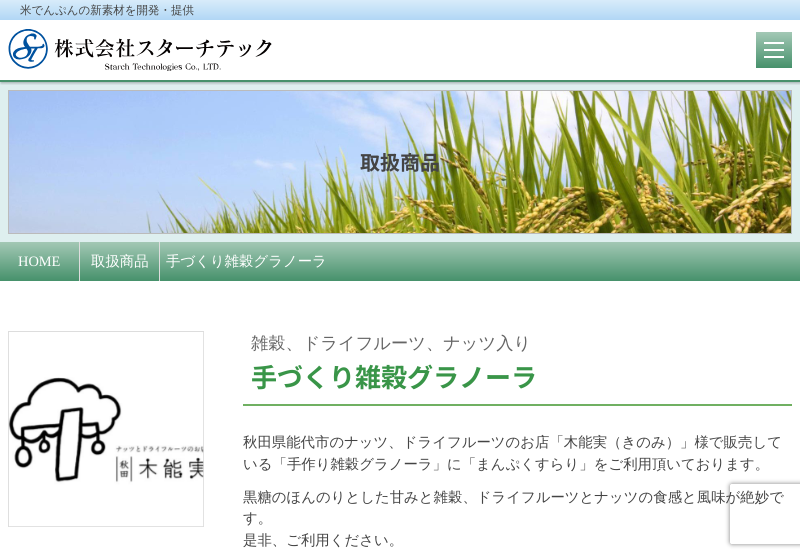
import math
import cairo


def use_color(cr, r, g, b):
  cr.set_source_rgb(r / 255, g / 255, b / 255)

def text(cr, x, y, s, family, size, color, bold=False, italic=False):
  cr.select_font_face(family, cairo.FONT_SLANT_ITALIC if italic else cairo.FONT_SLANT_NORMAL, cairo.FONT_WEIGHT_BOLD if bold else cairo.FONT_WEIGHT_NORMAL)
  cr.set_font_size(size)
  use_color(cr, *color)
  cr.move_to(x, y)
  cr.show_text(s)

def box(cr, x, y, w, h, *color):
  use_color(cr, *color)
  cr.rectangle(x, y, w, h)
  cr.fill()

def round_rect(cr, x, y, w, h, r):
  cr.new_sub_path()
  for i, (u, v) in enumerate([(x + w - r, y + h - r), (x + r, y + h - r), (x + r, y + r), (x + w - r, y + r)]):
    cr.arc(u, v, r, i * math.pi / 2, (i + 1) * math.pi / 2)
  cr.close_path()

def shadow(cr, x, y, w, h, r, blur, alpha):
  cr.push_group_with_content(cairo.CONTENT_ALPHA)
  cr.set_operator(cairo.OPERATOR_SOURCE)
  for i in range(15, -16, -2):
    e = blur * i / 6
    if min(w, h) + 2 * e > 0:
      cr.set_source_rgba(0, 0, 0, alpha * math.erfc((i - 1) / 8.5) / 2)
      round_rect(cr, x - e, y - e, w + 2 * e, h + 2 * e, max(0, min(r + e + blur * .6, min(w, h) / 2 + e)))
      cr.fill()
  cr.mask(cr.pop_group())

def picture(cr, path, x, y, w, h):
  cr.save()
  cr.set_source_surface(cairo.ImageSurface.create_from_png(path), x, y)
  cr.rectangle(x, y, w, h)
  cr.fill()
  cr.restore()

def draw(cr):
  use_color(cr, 255, 255, 255)
  cr.paint()
  box(cr, 0, 82, 800, 160, 222, 239, 239)
  cr.save()
  cr.rectangle(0, 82, 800, 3)
  cr.clip()
  use_color(cr, 0, 0, 0)
  shadow(cr, 1, 1, 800, 82, 0, 1.5, 0.3)
  cr.restore()
  box(cr, 0, 80, 800, 2, 70, 145, 107)
  gradient = cairo.LinearGradient(400, 0, 400, 20)
  gradient.add_color_stop_rgba(0, 0.847, 0.922, 0.98, 1)
  gradient.add_color_stop_rgba(1, 0.694, 0.843, 0.961, 1)
  cr.set_source(gradient)
  cr.rectangle(0, 0, 800, 20)
  cr.fill()
  picture(cr, "img_01.png", 8, 29, 264, 42)
  gradient = cairo.LinearGradient(774, 32, 774, 68)
  gradient.add_color_stop_rgba(0, 0.639, 0.784, 0.71, 1)
  gradient.add_color_stop_rgba(1, 0.275, 0.569, 0.42, 1)
  cr.set_source(gradient)
  cr.rectangle(756, 32, 36, 36)
  cr.fill()
  box(cr, 764, 42, 20, 2, 255, 255, 255)
  box(cr, 764, 49, 20, 2, 255, 255, 255)
  box(cr, 764, 56, 20, 2, 255, 255, 255)
  picture(cr, "img_02.png", 9, 91, 782, 142)
  cr.rectangle(8.5, 90.5, 783, 143)
  use_color(cr, 187, 187, 187)
  cr.set_line_width(1)
  cr.stroke()
  gradient = cairo.LinearGradient(400, 242, 400, 281)
  gradient.add_color_stop_rgba(0, 0.639, 0.784, 0.71, 1)
  gradient.add_color_stop_rgba(1, 0.275, 0.569, 0.42, 1)
  cr.set_source(gradient)
  cr.rectangle(0, 242, 800, 39)
  cr.fill()
  box(cr, 79, 242, 1, 39, 221, 221, 221)
  box(cr, 159, 242, 1, 39, 221, 221, 221)
  cr.rectangle(8.5, 331.5, 195, 195)
  cr.stroke()
  picture(cr, "img_03.png", 8, 332, 196, 195)
  box(cr, 243, 404, 549, 2, 112, 176, 98)
  cr.save()
  cr.set_fill_rule(cairo.FILL_RULE_EVEN_ODD)
  cr.new_path()
  cr.move_to(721, 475)
  cr.line_to(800, 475)
  cr.line_to(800, 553)
  cr.line_to(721, 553)
  cr.close_path()
  cr.move_to(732, 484)
  cr.line_to(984, 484)
  cr.curve_to(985, 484, 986, 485, 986, 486)
  cr.line_to(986, 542)
  cr.curve_to(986, 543, 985, 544, 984, 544)
  cr.line_to(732, 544)
  cr.curve_to(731, 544, 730, 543, 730, 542)
  cr.line_to(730, 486)
  cr.curve_to(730, 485, 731, 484, 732, 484)
  cr.close_path()
  cr.clip()
  use_color(cr, 128, 128, 128)
  shadow(cr, 730, 484, 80, 60, 2, 2.5, 1)
  cr.restore()
  text(cr, 20, 14, "米でんぷんの新素材を開発・提供", "WenQuanYi Zen Hei Medium", 11.5, (68, 68, 68))
  text(cr, 360, 170, "取扱商品", "Noto Sans JP", 20, (68, 68, 68), bold=True)
  text(cr, 18, 266, "HOME", "Liberation Serif", 14.4, (255, 255, 255))
  text(cr, 91, 266, "取扱商品", "WenQuanYi Zen Hei Medium", 14.4, (255, 255, 255))
  text(cr, 166, 266, "手づくり雑穀グラノーラ", "WenQuanYi Zen Hei Medium", 14.4, (255, 255, 255))
  text(cr, 251, 349, "雑穀、ドライフルーツ、ナッツ入り", "WenQuanYi Zen Hei Medium", 17.25, (102, 102, 102))
  text(cr, 251, 387, "手づくり雑穀グラノーラ", "Noto Sans JP", 26, (57, 149, 72), bold=True)
  text(cr, 243, 447, "秋田県能代市のナッツ、ドライフルーツのお店「木能実（きのみ）」様で販売して", "WenQuanYi Zen Hei Medium", 14.4, (68, 68, 68))
  text(cr, 243, 469, "いる「手作り雑穀グラノーラ」に「まんぷくすらり」をご利用頂いております。", "WenQuanYi Zen Hei Medium", 14.4, (68, 68, 68))
  text(cr, 243, 502, "黒糖のほんのりとした甘みと雑穀、ドライフルーツとナッツの食感と風味が絶妙で", "WenQuanYi Zen Hei Medium", 14.4, (68, 68, 68))
  text(cr, 243, 523, "す。", "WenQuanYi Zen Hei Medium", 14.4, (68, 68, 68))
  text(cr, 243, 545, "是非、ご利用ください。", "WenQuanYi Zen Hei Medium", 14.4, (68, 68, 68))


surface = cairo.ImageSurface(cairo.FORMAT_RGB24, 800, 558)
cr = cairo.Context(surface)
options = cairo.FontOptions()
options.set_hint_metrics(cairo.HINT_METRICS_OFF)
options.set_hint_style(cairo.HINT_STYLE_NONE)
cr.set_font_options(options)
cr.set_miter_limit(4)
draw(cr)
surface.write_to_png("out.png")
